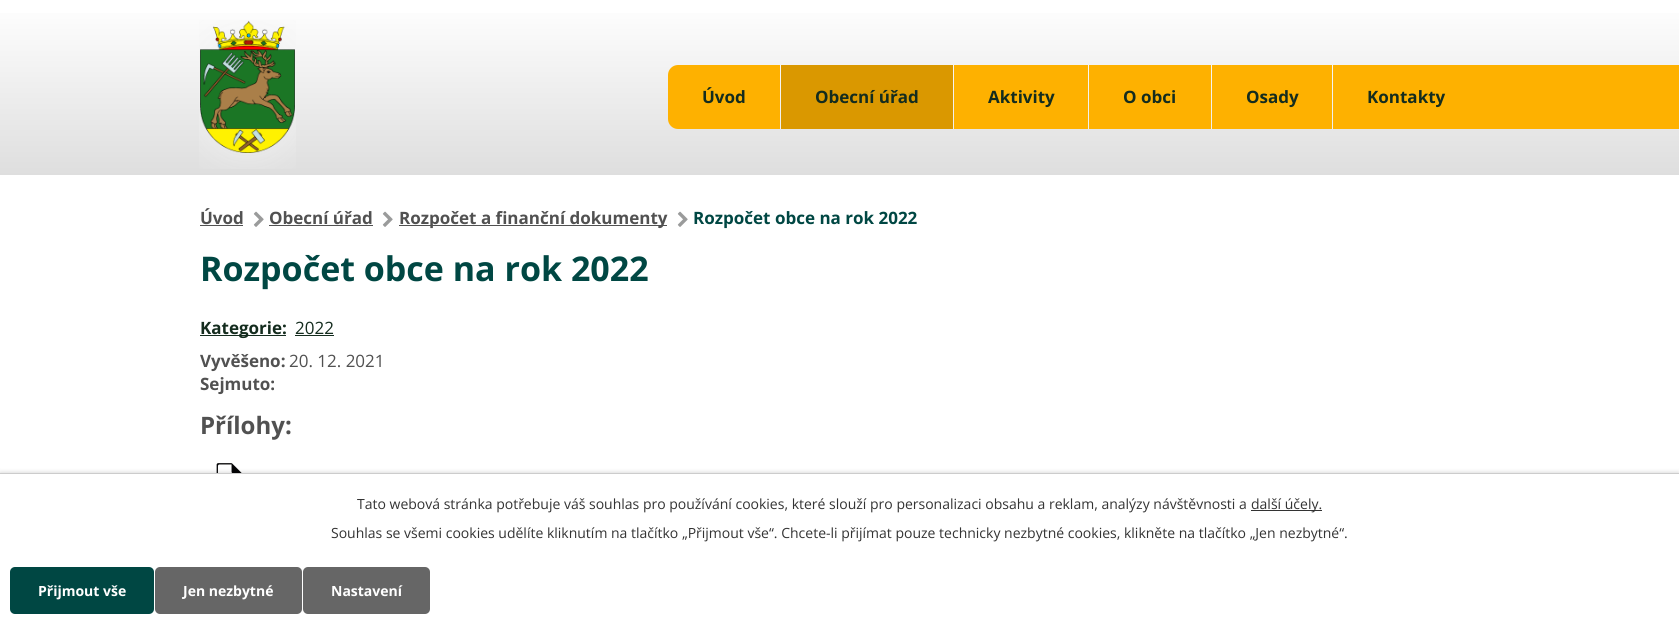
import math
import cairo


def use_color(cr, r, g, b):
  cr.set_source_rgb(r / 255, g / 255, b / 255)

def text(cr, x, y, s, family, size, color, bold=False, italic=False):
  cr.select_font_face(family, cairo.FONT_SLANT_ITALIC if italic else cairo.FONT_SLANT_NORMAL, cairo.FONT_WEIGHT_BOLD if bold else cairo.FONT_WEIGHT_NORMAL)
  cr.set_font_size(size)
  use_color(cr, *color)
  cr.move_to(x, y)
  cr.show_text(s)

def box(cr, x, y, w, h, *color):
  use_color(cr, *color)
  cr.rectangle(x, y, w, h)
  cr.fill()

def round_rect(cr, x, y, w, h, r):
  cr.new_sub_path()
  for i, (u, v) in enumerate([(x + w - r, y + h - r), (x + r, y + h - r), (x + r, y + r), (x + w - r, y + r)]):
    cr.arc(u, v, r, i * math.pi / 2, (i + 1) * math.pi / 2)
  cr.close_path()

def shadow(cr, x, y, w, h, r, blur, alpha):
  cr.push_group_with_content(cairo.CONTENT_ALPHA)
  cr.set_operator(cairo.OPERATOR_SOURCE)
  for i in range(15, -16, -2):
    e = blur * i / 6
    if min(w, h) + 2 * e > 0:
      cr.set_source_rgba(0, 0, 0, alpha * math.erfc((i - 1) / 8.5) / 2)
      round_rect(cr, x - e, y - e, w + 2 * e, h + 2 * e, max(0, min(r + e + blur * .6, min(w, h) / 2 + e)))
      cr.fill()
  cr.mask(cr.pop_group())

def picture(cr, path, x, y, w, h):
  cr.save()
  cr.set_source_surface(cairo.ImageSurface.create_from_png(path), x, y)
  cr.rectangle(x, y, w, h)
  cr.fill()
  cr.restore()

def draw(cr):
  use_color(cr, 255, 255, 255)
  cr.paint()
  gradient = cairo.LinearGradient(840, 0, 840, 175)
  gradient.add_color_stop_rgba(0, 1, 1, 1, 1)
  gradient.add_color_stop_rgba(1, 0.871, 0.871, 0.871, 1)
  cr.set_source(gradient)
  cr.rectangle(0, 13, 1679, 162)
  cr.fill()
  gradient = cairo.LinearGradient(840, 0, 840, 175)
  gradient.add_color_stop_rgba(0, 1, 1, 1, 1)
  gradient.add_color_stop_rgba(1, 0.91, 0.91, 0.91, 1)
  cr.set_source(gradient)
  cr.rectangle(1332, 65, 1, 64)
  cr.fill()
  cr.rectangle(1211, 65, 1, 64)
  cr.fill()
  cr.rectangle(1088, 65, 1, 64)
  cr.fill()
  cr.rectangle(953, 65, 1, 64)
  cr.fill()
  cr.rectangle(780, 65, 1, 64)
  cr.fill()
  picture(cr, "img_01.png", 199, 20, 97, 149)
  use_color(cr, 254, 177, 0)
  cr.new_path()
  cr.move_to(678, 65)
  cr.line_to(780, 65)
  cr.line_to(780, 129)
  cr.line_to(678, 129)
  cr.curve_to(672.5, 129, 668, 124.5, 668, 119)
  cr.line_to(668, 75)
  cr.curve_to(668, 69.5, 672.5, 65, 678, 65)
  cr.close_path()
  cr.fill()
  box(cr, 781, 65, 172, 64, 218, 152, 0)
  box(cr, 954, 65, 134, 64, 254, 177, 0)
  box(cr, 1089, 65, 122, 64, 254, 177, 0)
  box(cr, 1212, 65, 120, 64, 254, 177, 0)
  box(cr, 1333, 65, 346, 64, 254, 177, 0)
  box(cr, 200, 225, 43, 1, 81, 81, 81)
  picture(cr, "img_02.png", 253, 211, 11, 16)
  box(cr, 269, 225, 104, 1, 81, 81, 81)
  picture(cr, "img_02.png", 382, 211, 11, 16)
  box(cr, 399, 225, 268, 1, 81, 81, 81)
  picture(cr, "img_02.png", 677, 211, 11, 16)
  box(cr, 200, 335, 86, 1, 20, 44, 30)
  box(cr, 295, 335, 39, 1, 20, 44, 30)
  picture(cr, "img_03.png", 216, 463, 26, 10)
  use_color(cr, 0, 0, 0)
  shadow(cr, 0, 473, 1679, 165, 0, 2.5, 0.2)
  box(cr, 0, 474, 1679, 164, 255, 255, 255)
  box(cr, 0, 473, 1679, 1, 204, 204, 204)
  box(cr, 1251, 510, 71, 1, 51, 51, 51)
  use_color(cr, 0, 71, 67)
  round_rect(cr, 10, 567, 144, 47, 5)
  cr.fill()
  use_color(cr, 102, 102, 102)
  round_rect(cr, 155, 567, 147, 47, 5)
  cr.fill()
  round_rect(cr, 303, 567, 127, 47, 5)
  cr.fill()
  text(cr, 702, 103, "Úvod", "Open Sans", 17, (20, 44, 30), bold=True)
  text(cr, 815, 103, "Obecní úřad", "Open Sans", 17, (20, 44, 30), bold=True)
  text(cr, 988, 103, "Aktivity", "Open Sans", 17, (20, 44, 30), bold=True)
  text(cr, 1123, 103, "O obci", "Open Sans", 17, (20, 44, 30), bold=True)
  text(cr, 1246, 103, "Osady", "Open Sans", 17, (20, 44, 30), bold=True)
  text(cr, 1367, 103, "Kontakty", "Open Sans", 17, (20, 44, 30), bold=True)
  text(cr, 200, 224, "Úvod", "Open Sans", 17, (81, 81, 81), bold=True)
  text(cr, 269, 224, "Obecní úřad", "Open Sans", 17, (81, 81, 81), bold=True)
  text(cr, 399, 224, "Rozpočet a finanční dokumenty", "Open Sans", 17, (81, 81, 81), bold=True)
  text(cr, 693, 224, "Rozpočet obce na rok 2022", "Open Sans", 17, (0, 71, 67), bold=True)
  text(cr, 200, 281, "Rozpočet obce na rok 2022", "Open Sans", 34, (0, 71, 67), bold=True)
  text(cr, 200, 334, "Kategorie:", "Open Sans", 17, (20, 44, 30), bold=True)
  text(cr, 295, 334, "2022", "Open Sans", 17, (20, 44, 30))
  text(cr, 200, 367, "Vyvěšeno:", "Open Sans", 17, (81, 81, 81), bold=True)
  text(cr, 289, 367, "20. 12. 2021", "Open Sans", 17, (81, 81, 81))
  text(cr, 200, 390, "Sejmuto:", "Open Sans", 17, (81, 81, 81), bold=True)
  text(cr, 200, 434, "Přílohy:", "Open Sans", 24, (81, 81, 81), bold=True)
  text(cr, 357, 509, "Tato webová stránka potřebuje váš souhlas pro používání cookies, které slouží pro personalizaci obsahu a reklam, analýzy návštěvnosti a", "Open Sans", 14, (51, 51, 51))
  text(cr, 1251, 509, "další účely.", "Open Sans", 14, (51, 51, 51))
  text(cr, 331, 538, "Souhlas se všemi cookies udělíte kliknutím na tlačítko „Přijmout vše“. Chcete-li přijímat pouze technicky nezbytné cookies, klikněte na tlačítko „Jen nezbytné“.", "Open Sans", 14, (51, 51, 51))
  text(cr, 38, 596, "Přijmout vše", "Open Sans", 14, (255, 255, 255), bold=True)
  text(cr, 183, 596, "Jen nezbytné", "Open Sans", 14, (255, 255, 255), bold=True)
  text(cr, 331, 596, "Nastavení", "Open Sans", 14, (255, 255, 255), bold=True)


surface = cairo.ImageSurface(cairo.FORMAT_RGB24, 1679, 638)
cr = cairo.Context(surface)
options = cairo.FontOptions()
options.set_hint_metrics(cairo.HINT_METRICS_OFF)
options.set_hint_style(cairo.HINT_STYLE_NONE)
cr.set_font_options(options)
cr.set_miter_limit(4)
draw(cr)
surface.write_to_png("out.png")
